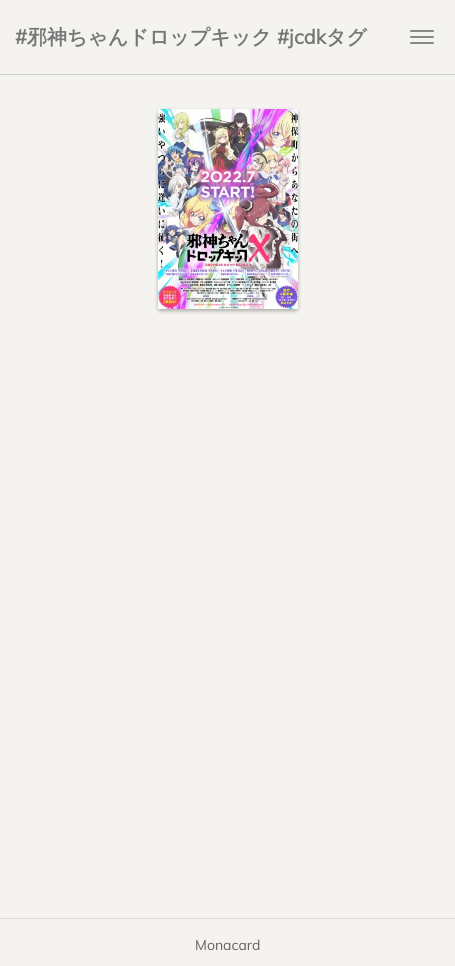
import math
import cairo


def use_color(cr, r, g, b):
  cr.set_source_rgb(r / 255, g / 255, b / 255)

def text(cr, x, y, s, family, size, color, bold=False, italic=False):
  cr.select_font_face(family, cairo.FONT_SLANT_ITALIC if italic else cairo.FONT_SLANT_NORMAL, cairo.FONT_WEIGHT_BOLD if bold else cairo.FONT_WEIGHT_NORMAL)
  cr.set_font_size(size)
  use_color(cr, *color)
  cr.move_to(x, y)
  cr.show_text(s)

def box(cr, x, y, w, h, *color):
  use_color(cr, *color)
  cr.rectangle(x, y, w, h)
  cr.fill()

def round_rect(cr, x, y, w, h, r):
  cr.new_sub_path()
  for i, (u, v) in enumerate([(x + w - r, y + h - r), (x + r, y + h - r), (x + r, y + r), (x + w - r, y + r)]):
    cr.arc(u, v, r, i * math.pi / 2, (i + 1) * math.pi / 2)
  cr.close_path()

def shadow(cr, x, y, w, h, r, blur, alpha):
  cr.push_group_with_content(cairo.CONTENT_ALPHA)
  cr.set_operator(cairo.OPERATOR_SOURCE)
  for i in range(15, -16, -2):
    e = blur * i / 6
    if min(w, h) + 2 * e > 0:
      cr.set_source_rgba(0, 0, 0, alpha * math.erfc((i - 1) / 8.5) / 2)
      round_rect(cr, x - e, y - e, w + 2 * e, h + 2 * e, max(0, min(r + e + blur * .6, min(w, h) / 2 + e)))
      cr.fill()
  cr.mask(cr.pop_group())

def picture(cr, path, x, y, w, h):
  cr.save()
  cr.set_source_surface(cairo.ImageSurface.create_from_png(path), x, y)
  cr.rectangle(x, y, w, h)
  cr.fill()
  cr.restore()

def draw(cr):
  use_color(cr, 244, 243, 239)
  cr.paint()
  box(cr, 0, 74, 455, 1, 207, 207, 202)
  use_color(cr, 136, 136, 136)
  round_rect(cr, 410, 30, 24, 2, 1)
  cr.fill()
  round_rect(cr, 410, 36, 24, 2, 1)
  cr.fill()
  round_rect(cr, 410, 42, 24, 2, 1)
  cr.fill()
  use_color(cr, 0, 0, 0)
  shadow(cr, 158, 111, 140, 200, 3, 2, 0.3)
  picture(cr, "img_01.png", 158, 109, 140, 200)
  box(cr, 0, 918, 455, 1, 220, 219, 215)
  text(cr, 15, 44, "#", "Muli", 20, (119, 119, 119), bold=True)
  text(cr, 27, 44, "邪神ちゃんドロップキック", "WenQuanYi Zen Hei", 20, (119, 119, 119), bold=True)
  text(cr, 277, 44, "#jcdk", "Muli", 20, (119, 119, 119), bold=True)
  text(cr, 326, 44, "タグ", "WenQuanYi Zen Hei", 20, (119, 119, 119), bold=True)
  text(cr, 195, 950, "Monacard", "Muli", 14, (102, 97, 91))


surface = cairo.ImageSurface(cairo.FORMAT_RGB24, 455, 966)
cr = cairo.Context(surface)
options = cairo.FontOptions()
options.set_hint_metrics(cairo.HINT_METRICS_OFF)
options.set_hint_style(cairo.HINT_STYLE_NONE)
cr.set_font_options(options)
cr.set_miter_limit(4)
draw(cr)
surface.write_to_png("out.png")
